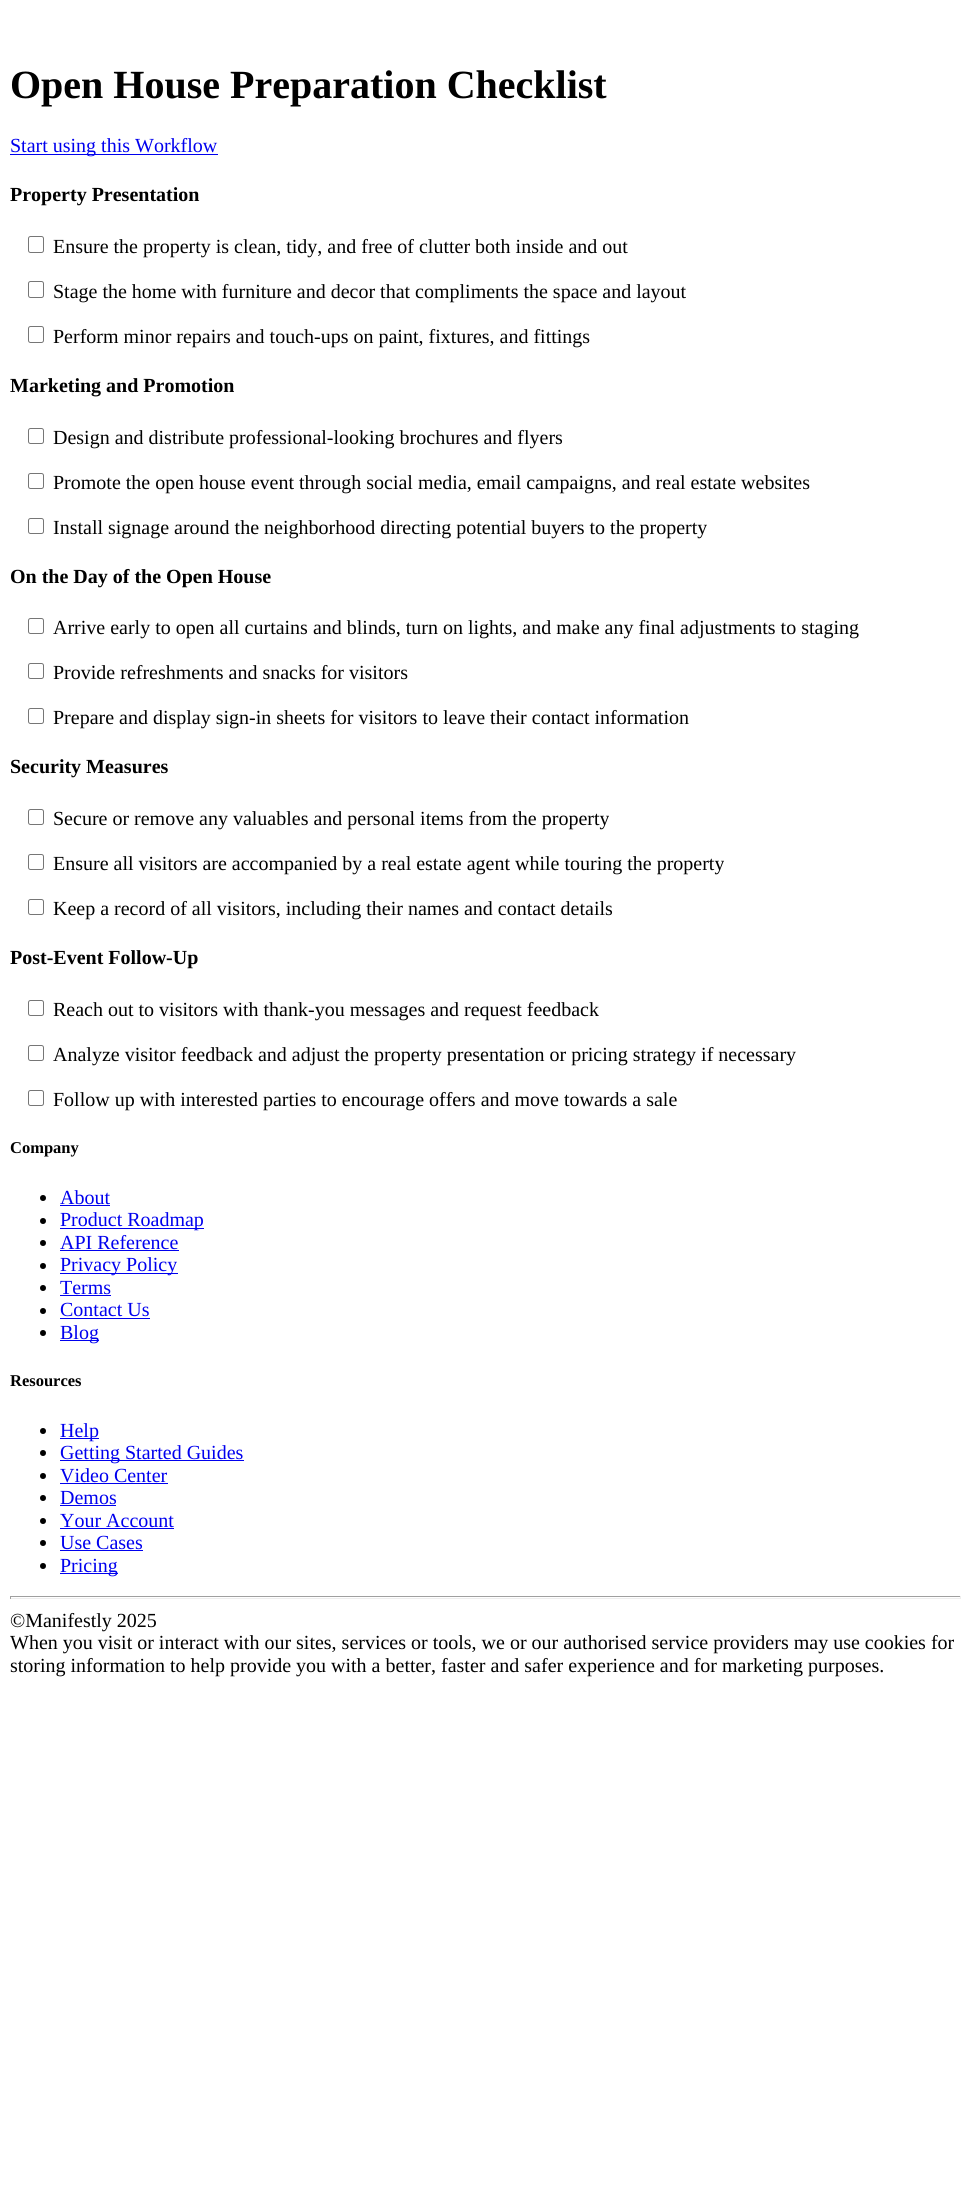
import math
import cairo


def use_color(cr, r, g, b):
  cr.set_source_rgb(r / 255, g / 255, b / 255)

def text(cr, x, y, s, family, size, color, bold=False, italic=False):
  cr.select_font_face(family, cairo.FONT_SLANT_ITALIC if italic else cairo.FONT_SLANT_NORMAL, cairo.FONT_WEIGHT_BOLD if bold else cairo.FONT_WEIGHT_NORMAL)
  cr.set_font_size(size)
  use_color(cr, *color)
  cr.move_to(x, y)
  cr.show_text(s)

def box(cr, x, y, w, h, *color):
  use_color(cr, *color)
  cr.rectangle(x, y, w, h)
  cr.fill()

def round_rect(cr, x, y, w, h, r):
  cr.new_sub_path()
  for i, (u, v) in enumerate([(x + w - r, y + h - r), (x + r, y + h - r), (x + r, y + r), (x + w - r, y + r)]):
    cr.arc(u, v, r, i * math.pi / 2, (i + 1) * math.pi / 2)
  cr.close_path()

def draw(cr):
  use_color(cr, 255, 255, 255)
  cr.paint()
  box(cr, 10, 154, 208, 1, 0, 0, 238)
  round_rect(cr, 28.5, 236.5, 15, 16, 2)
  use_color(cr, 118, 118, 118)
  cr.set_line_width(1)
  cr.stroke()
  round_rect(cr, 28.5, 281.5, 15, 16, 2)
  cr.stroke()
  round_rect(cr, 28.5, 326.5, 15, 16, 2)
  cr.stroke()
  round_rect(cr, 28.5, 428.5, 15, 15, 2)
  cr.stroke()
  round_rect(cr, 28.5, 473.5, 15, 15, 2)
  cr.stroke()
  round_rect(cr, 28.5, 518.5, 15, 15, 2)
  cr.stroke()
  round_rect(cr, 28.5, 618.5, 15, 15, 2)
  cr.stroke()
  round_rect(cr, 28.5, 663.5, 15, 15, 2)
  cr.stroke()
  round_rect(cr, 28.5, 708.5, 15, 15, 2)
  cr.stroke()
  round_rect(cr, 28.5, 809.5, 15, 15, 2)
  cr.stroke()
  round_rect(cr, 28.5, 854.5, 15, 15, 2)
  cr.stroke()
  round_rect(cr, 28.5, 899.5, 15, 15, 2)
  cr.stroke()
  round_rect(cr, 28.5, 1000.5, 15, 15, 2)
  cr.stroke()
  round_rect(cr, 28.5, 1045.5, 15, 15, 2)
  cr.stroke()
  round_rect(cr, 28.5, 1090.5, 15, 15, 2)
  cr.stroke()
  use_color(cr, 0, 0, 0)
  cr.arc(43, 1198, 3, 0, 2 * math.pi)
  cr.fill()
  box(cr, 60, 1205, 50, 1, 0, 0, 238)
  use_color(cr, 0, 0, 0)
  cr.arc(43, 1221, 3, 0, 2 * math.pi)
  cr.fill()
  box(cr, 60, 1228, 144, 1, 0, 0, 238)
  use_color(cr, 0, 0, 0)
  cr.arc(43, 1243, 3, 0, 2 * math.pi)
  cr.fill()
  box(cr, 60, 1250, 119, 1, 0, 0, 238)
  use_color(cr, 0, 0, 0)
  cr.arc(43, 1266, 3, 0, 2 * math.pi)
  cr.fill()
  box(cr, 60, 1273, 118, 1, 0, 0, 238)
  use_color(cr, 0, 0, 0)
  cr.arc(43, 1288, 3, 0, 2 * math.pi)
  cr.fill()
  box(cr, 60, 1295, 51, 1, 0, 0, 238)
  use_color(cr, 0, 0, 0)
  cr.arc(43, 1311, 3, 0, 2 * math.pi)
  cr.fill()
  box(cr, 60, 1318, 90, 1, 0, 0, 238)
  use_color(cr, 0, 0, 0)
  cr.arc(43, 1333, 3, 0, 2 * math.pi)
  cr.fill()
  box(cr, 60, 1340, 39, 1, 0, 0, 238)
  use_color(cr, 0, 0, 0)
  cr.arc(43, 1431, 3, 0, 2 * math.pi)
  cr.fill()
  box(cr, 60, 1438, 39, 1, 0, 0, 238)
  use_color(cr, 0, 0, 0)
  cr.arc(43, 1453, 3, 0, 2 * math.pi)
  cr.fill()
  box(cr, 60, 1460, 184, 1, 0, 0, 238)
  use_color(cr, 0, 0, 0)
  cr.arc(43, 1476, 3, 0, 2 * math.pi)
  cr.fill()
  box(cr, 60, 1483, 108, 1, 0, 0, 238)
  use_color(cr, 0, 0, 0)
  cr.arc(43, 1498, 3, 0, 2 * math.pi)
  cr.fill()
  box(cr, 60, 1505, 56, 1, 0, 0, 238)
  use_color(cr, 0, 0, 0)
  cr.arc(43, 1521, 3, 0, 2 * math.pi)
  cr.fill()
  box(cr, 60, 1528, 114, 1, 0, 0, 238)
  use_color(cr, 0, 0, 0)
  cr.arc(43, 1543, 3, 0, 2 * math.pi)
  cr.fill()
  box(cr, 60, 1550, 83, 1, 0, 0, 238)
  use_color(cr, 0, 0, 0)
  cr.arc(43, 1566, 3, 0, 2 * math.pi)
  cr.fill()
  box(cr, 60, 1573, 58, 1, 0, 0, 238)
  box(cr, 10, 1596, 951, 1, 159, 159, 159)
  box(cr, 960, 1596, 1, 3, 238, 238, 238)
  box(cr, 10, 1598, 951, 1, 238, 238, 238)
  box(cr, 10, 1596, 1, 3, 159, 159, 159)
  text(cr, 10, 98, "Open House Preparation Checklist", "Liberation Serif", 40, (0, 0, 0), bold=True)
  text(cr, 10, 152, "Start using this Workflow", "Liberation Serif", 20, (0, 0, 238))
  text(cr, 10, 201, "Property Presentation", "Liberation Serif", 20, (0, 0, 0), bold=True)
  text(cr, 53, 253, "Ensure the property is clean, tidy, and free of clutter both inside and out", "Liberation Serif", 20, (0, 0, 0))
  text(cr, 53, 298, "Stage the home with furniture and decor that compliments the space and layout", "Liberation Serif", 20, (0, 0, 0))
  text(cr, 53, 343, "Perform minor repairs and touch-ups on paint, fixtures, and fittings", "Liberation Serif", 20, (0, 0, 0))
  text(cr, 10, 392, "Marketing and Promotion", "Liberation Serif", 20, (0, 0, 0), bold=True)
  text(cr, 53, 444, "Design and distribute professional-looking brochures and flyers", "Liberation Serif", 20, (0, 0, 0))
  text(cr, 53, 489, "Promote the open house event through social media, email campaigns, and real estate websites", "Liberation Serif", 20, (0, 0, 0))
  text(cr, 53, 534, "Install signage around the neighborhood directing potential buyers to the property", "Liberation Serif", 20, (0, 0, 0))
  text(cr, 10, 583, "On the Day of the Open House", "Liberation Serif", 20, (0, 0, 0), bold=True)
  text(cr, 53, 634, "Arrive early to open all curtains and blinds, turn on lights, and make any final adjustments to staging", "Liberation Serif", 20, (0, 0, 0))
  text(cr, 53, 679, "Provide refreshments and snacks for visitors", "Liberation Serif", 20, (0, 0, 0))
  text(cr, 53, 724, "Prepare and display sign-in sheets for visitors to leave their contact information", "Liberation Serif", 20, (0, 0, 0))
  text(cr, 10, 773, "Security Measures", "Liberation Serif", 20, (0, 0, 0), bold=True)
  text(cr, 53, 825, "Secure or remove any valuables and personal items from the property", "Liberation Serif", 20, (0, 0, 0))
  text(cr, 53, 870, "Ensure all visitors are accompanied by a real estate agent while touring the property", "Liberation Serif", 20, (0, 0, 0))
  text(cr, 53, 915, "Keep a record of all visitors, including their names and contact details", "Liberation Serif", 20, (0, 0, 0))
  text(cr, 10, 964, "Post-Event Follow-Up", "Liberation Serif", 20, (0, 0, 0), bold=True)
  text(cr, 53, 1016, "Reach out to visitors with thank-you messages and request feedback", "Liberation Serif", 20, (0, 0, 0))
  text(cr, 53, 1061, "Analyze visitor feedback and adjust the property presentation or pricing strategy if necessary", "Liberation Serif", 20, (0, 0, 0))
  text(cr, 53, 1106, "Follow up with interested parties to encourage offers and move towards a sale", "Liberation Serif", 20, (0, 0, 0))
  text(cr, 10, 1153, "Company", "Liberation Serif", 16.5, (0, 0, 0), bold=True)
  text(cr, 60, 1204, "About", "Liberation Serif", 20, (0, 0, 238))
  text(cr, 60, 1226, "Product Roadmap", "Liberation Serif", 20, (0, 0, 238))
  text(cr, 60, 1249, "API Reference", "Liberation Serif", 20, (0, 0, 238))
  text(cr, 60, 1271, "Privacy Policy", "Liberation Serif", 20, (0, 0, 238))
  text(cr, 60, 1294, "Terms", "Liberation Serif", 20, (0, 0, 238))
  text(cr, 60, 1316, "Contact Us", "Liberation Serif", 20, (0, 0, 238))
  text(cr, 60, 1339, "Blog", "Liberation Serif", 20, (0, 0, 238))
  text(cr, 10, 1386, "Resources", "Liberation Serif", 16.5, (0, 0, 0), bold=True)
  text(cr, 60, 1437, "Help", "Liberation Serif", 20, (0, 0, 238))
  text(cr, 60, 1459, "Getting Started Guides", "Liberation Serif", 20, (0, 0, 238))
  text(cr, 60, 1482, "Video Center", "Liberation Serif", 20, (0, 0, 238))
  text(cr, 60, 1504, "Demos", "Liberation Serif", 20, (0, 0, 238))
  text(cr, 60, 1527, "Your Account", "Liberation Serif", 20, (0, 0, 238))
  text(cr, 60, 1549, "Use Cases", "Liberation Serif", 20, (0, 0, 238))
  text(cr, 60, 1572, "Pricing", "Liberation Serif", 20, (0, 0, 238))
  text(cr, 10, 1627, "©Manifestly 2025", "Liberation Serif", 20, (0, 0, 0))
  text(cr, 10, 1649, "When you visit or interact with our sites, services or tools, we or our authorised service providers may use cookies for", "Liberation Serif", 20, (0, 0, 0))
  text(cr, 10, 1672, "storing information to help provide you with a better, faster and safer experience and for marketing purposes.", "Liberation Serif", 20, (0, 0, 0))


surface = cairo.ImageSurface(cairo.FORMAT_RGB24, 971, 2197)
cr = cairo.Context(surface)
options = cairo.FontOptions()
options.set_hint_metrics(cairo.HINT_METRICS_OFF)
options.set_hint_style(cairo.HINT_STYLE_NONE)
cr.set_font_options(options)
cr.set_miter_limit(4)
draw(cr)
surface.write_to_png("out.png")
